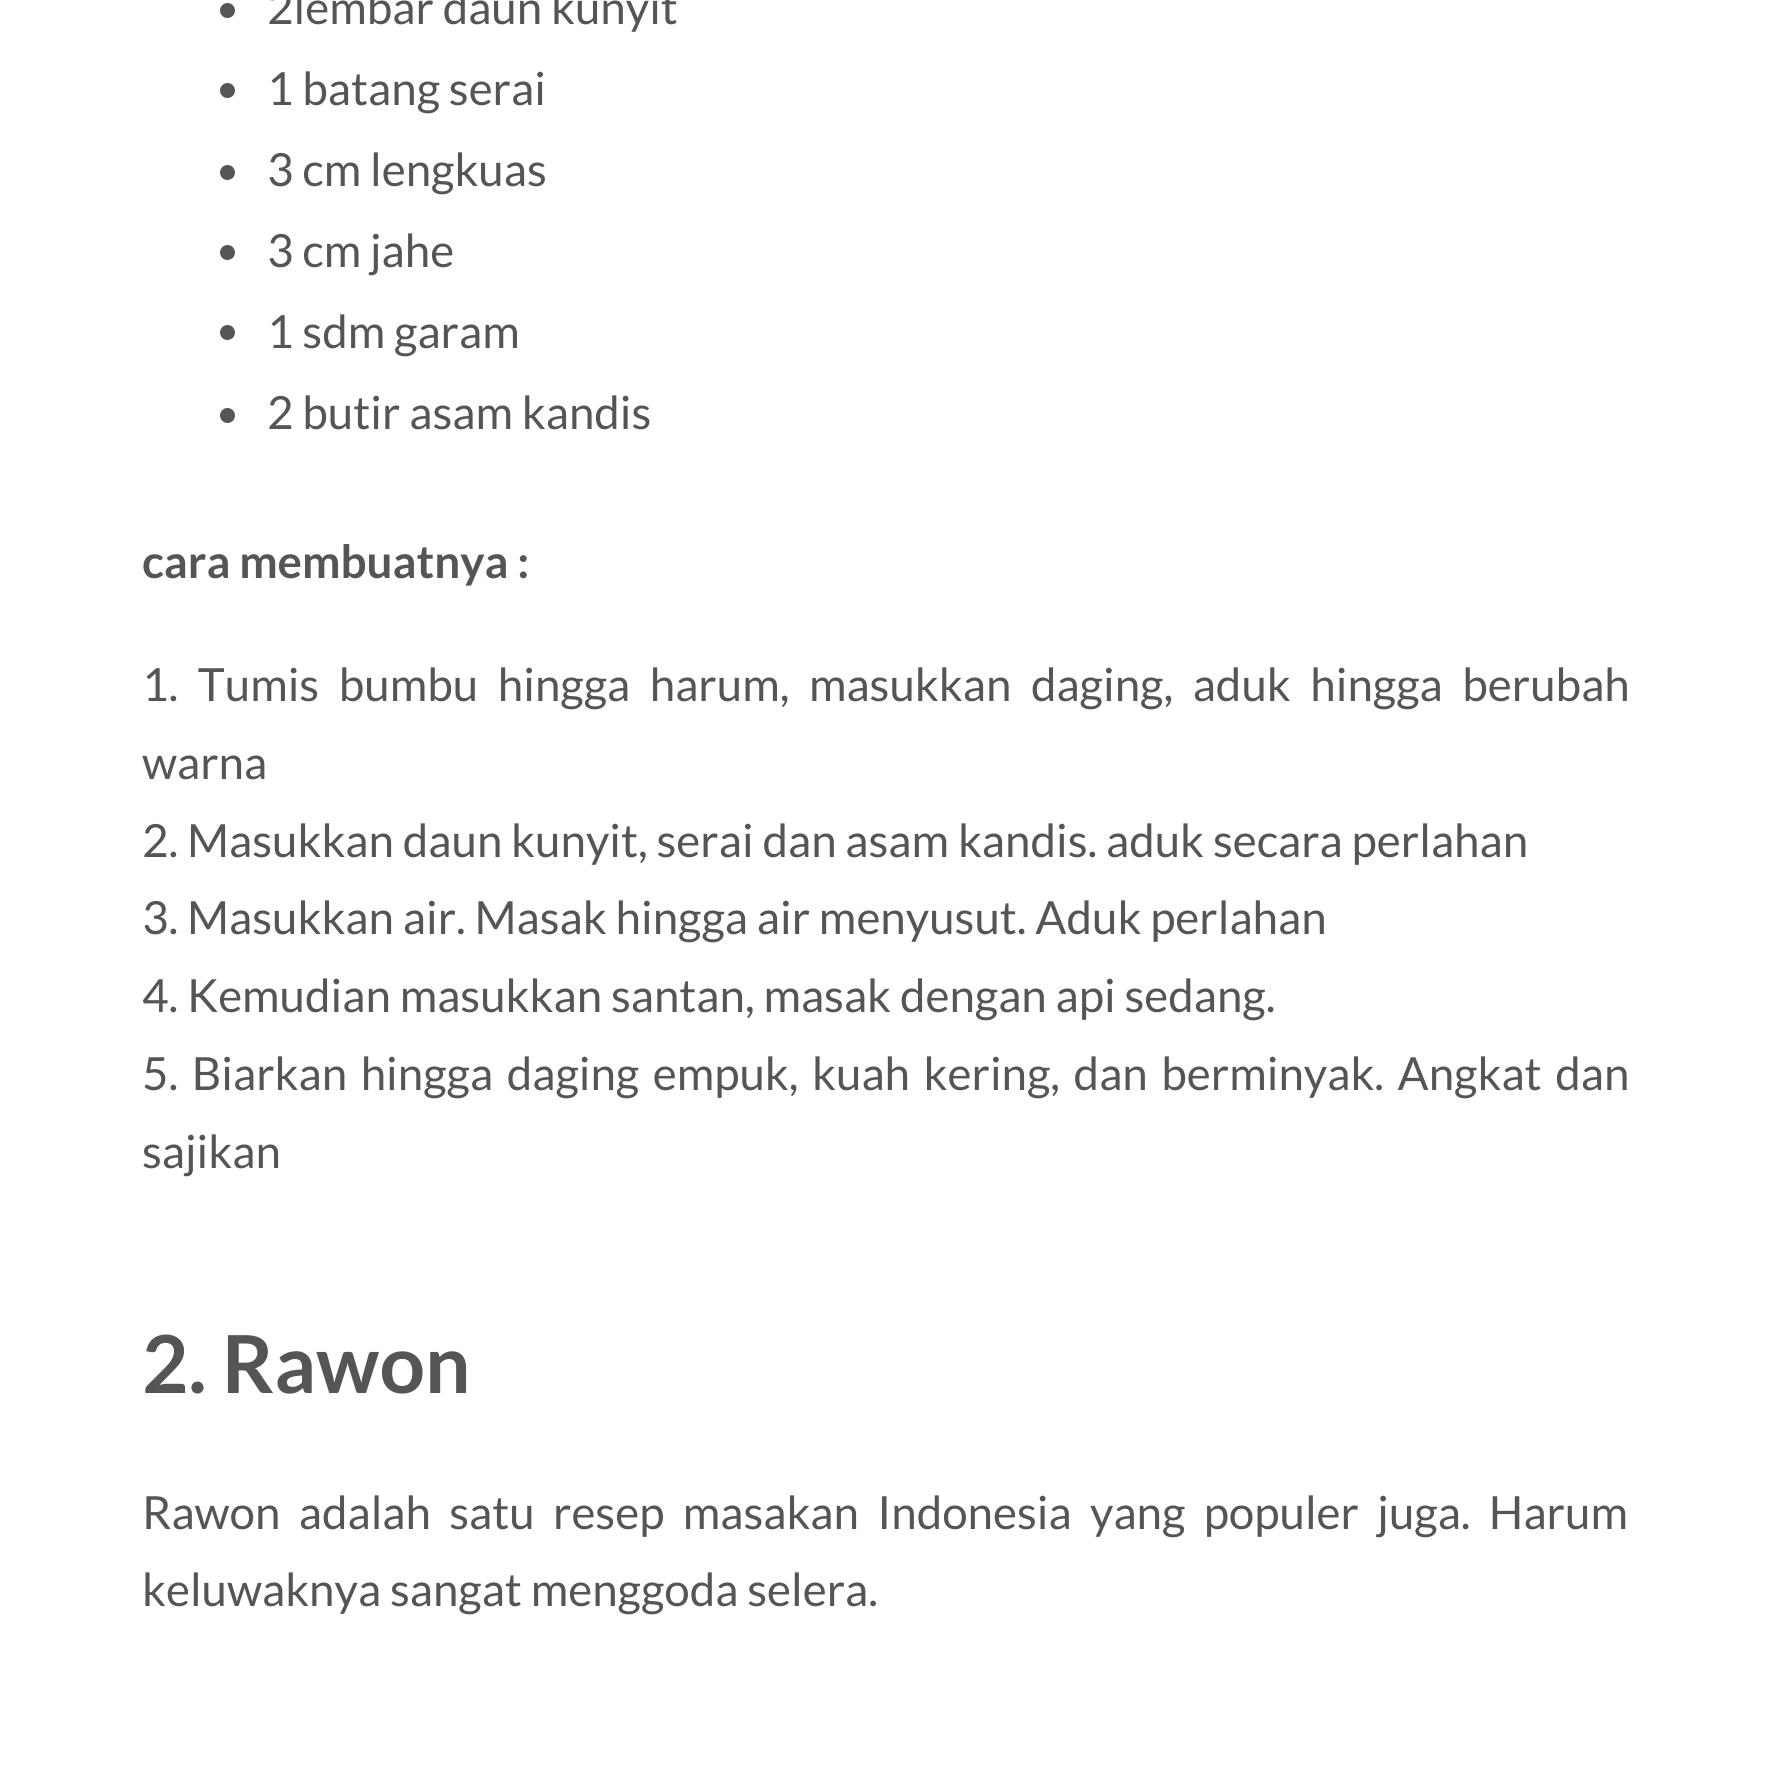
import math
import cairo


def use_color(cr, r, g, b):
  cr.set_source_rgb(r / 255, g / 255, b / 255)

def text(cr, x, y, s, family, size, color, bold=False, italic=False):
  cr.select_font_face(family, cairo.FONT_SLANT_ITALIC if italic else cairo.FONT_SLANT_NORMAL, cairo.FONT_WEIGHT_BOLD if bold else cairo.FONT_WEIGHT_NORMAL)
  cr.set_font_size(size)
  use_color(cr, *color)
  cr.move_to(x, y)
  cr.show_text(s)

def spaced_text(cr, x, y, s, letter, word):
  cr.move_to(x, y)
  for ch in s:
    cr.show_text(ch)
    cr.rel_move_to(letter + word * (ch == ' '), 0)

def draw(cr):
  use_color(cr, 255, 255, 255)
  cr.paint()
  use_color(cr, 85, 85, 85)
  cr.arc(227.5, 10.5, 7.5, 0, 2 * math.pi)
  cr.fill()
  cr.arc(227.5, 90.5, 7.5, 0, 2 * math.pi)
  cr.fill()
  cr.arc(227.5, 172.5, 7.5, 0, 2 * math.pi)
  cr.fill()
  cr.arc(227.5, 252.5, 7.5, 0, 2 * math.pi)
  cr.fill()
  cr.arc(227.5, 332.5, 7.5, 0, 2 * math.pi)
  cr.fill()
  cr.arc(227.5, 415.5, 7.5, 0, 2 * math.pi)
  cr.fill()
  text(cr, 267, 24, "2lembar daun kunyit", "Lato", 45.7, (85, 85, 85))
  text(cr, 267, 105, "1 batang serai", "Lato", 45.7, (85, 85, 85))
  text(cr, 267, 186, "3 cm lengkuas", "Lato", 45.7, (85, 85, 85))
  text(cr, 267, 267, "3 cm jahe", "Lato", 45.7, (85, 85, 85))
  text(cr, 267, 348, "1 sdm garam", "Lato", 45.7, (85, 85, 85))
  text(cr, 267, 429, "2 butir asam kandis", "Lato", 45.7, (85, 85, 85))
  text(cr, 142, 578, "cara membuatnya :", "Lato", 45.7, (85, 85, 85), bold=True)
  cr.select_font_face("Lato")
  spaced_text(cr, 142, 701, "1. Tumis bumbu hingga harum, masukkan daging, aduk hingga berubah", 0, 10.75)
  text(cr, 142, 779, "warna", "Lato", 45.7, (85, 85, 85))
  text(cr, 142, 857, "2. Masukkan daun kunyit, serai dan asam kandis. aduk secara perlahan", "Lato", 45.7, (85, 85, 85))
  text(cr, 142, 934, "3. Masukkan air. Masak hingga air menyusut. Aduk perlahan", "Lato", 45.7, (85, 85, 85))
  text(cr, 142, 1012, "4. Kemudian masukkan santan, masak dengan api sedang.", "Lato", 45.7, (85, 85, 85))
  spaced_text(cr, 142, 1090, "5. Biarkan hingga daging empuk, kuah kering, dan berminyak. Angkat dan", 0, 4.75)
  text(cr, 142, 1168, "sajikan", "Lato", 45.7, (85, 85, 85))
  text(cr, 142, 1393, "2. Rawon", "Lato", 80, (85, 85, 85), bold=True)
  cr.select_font_face("Lato")
  cr.set_font_size(45.7)
  spaced_text(cr, 142, 1529, "Rawon adalah satu resep masakan Indonesia yang populer juga. Harum", 0, 9.5)
  text(cr, 142, 1606, "keluwaknya sangat menggoda selera.", "Lato", 45.7, (85, 85, 85))


surface = cairo.ImageSurface(cairo.FORMAT_RGB24, 1770, 1772)
cr = cairo.Context(surface)
options = cairo.FontOptions()
options.set_hint_metrics(cairo.HINT_METRICS_OFF)
options.set_hint_style(cairo.HINT_STYLE_NONE)
cr.set_font_options(options)
cr.set_miter_limit(4)
draw(cr)
surface.write_to_png("out.png")
